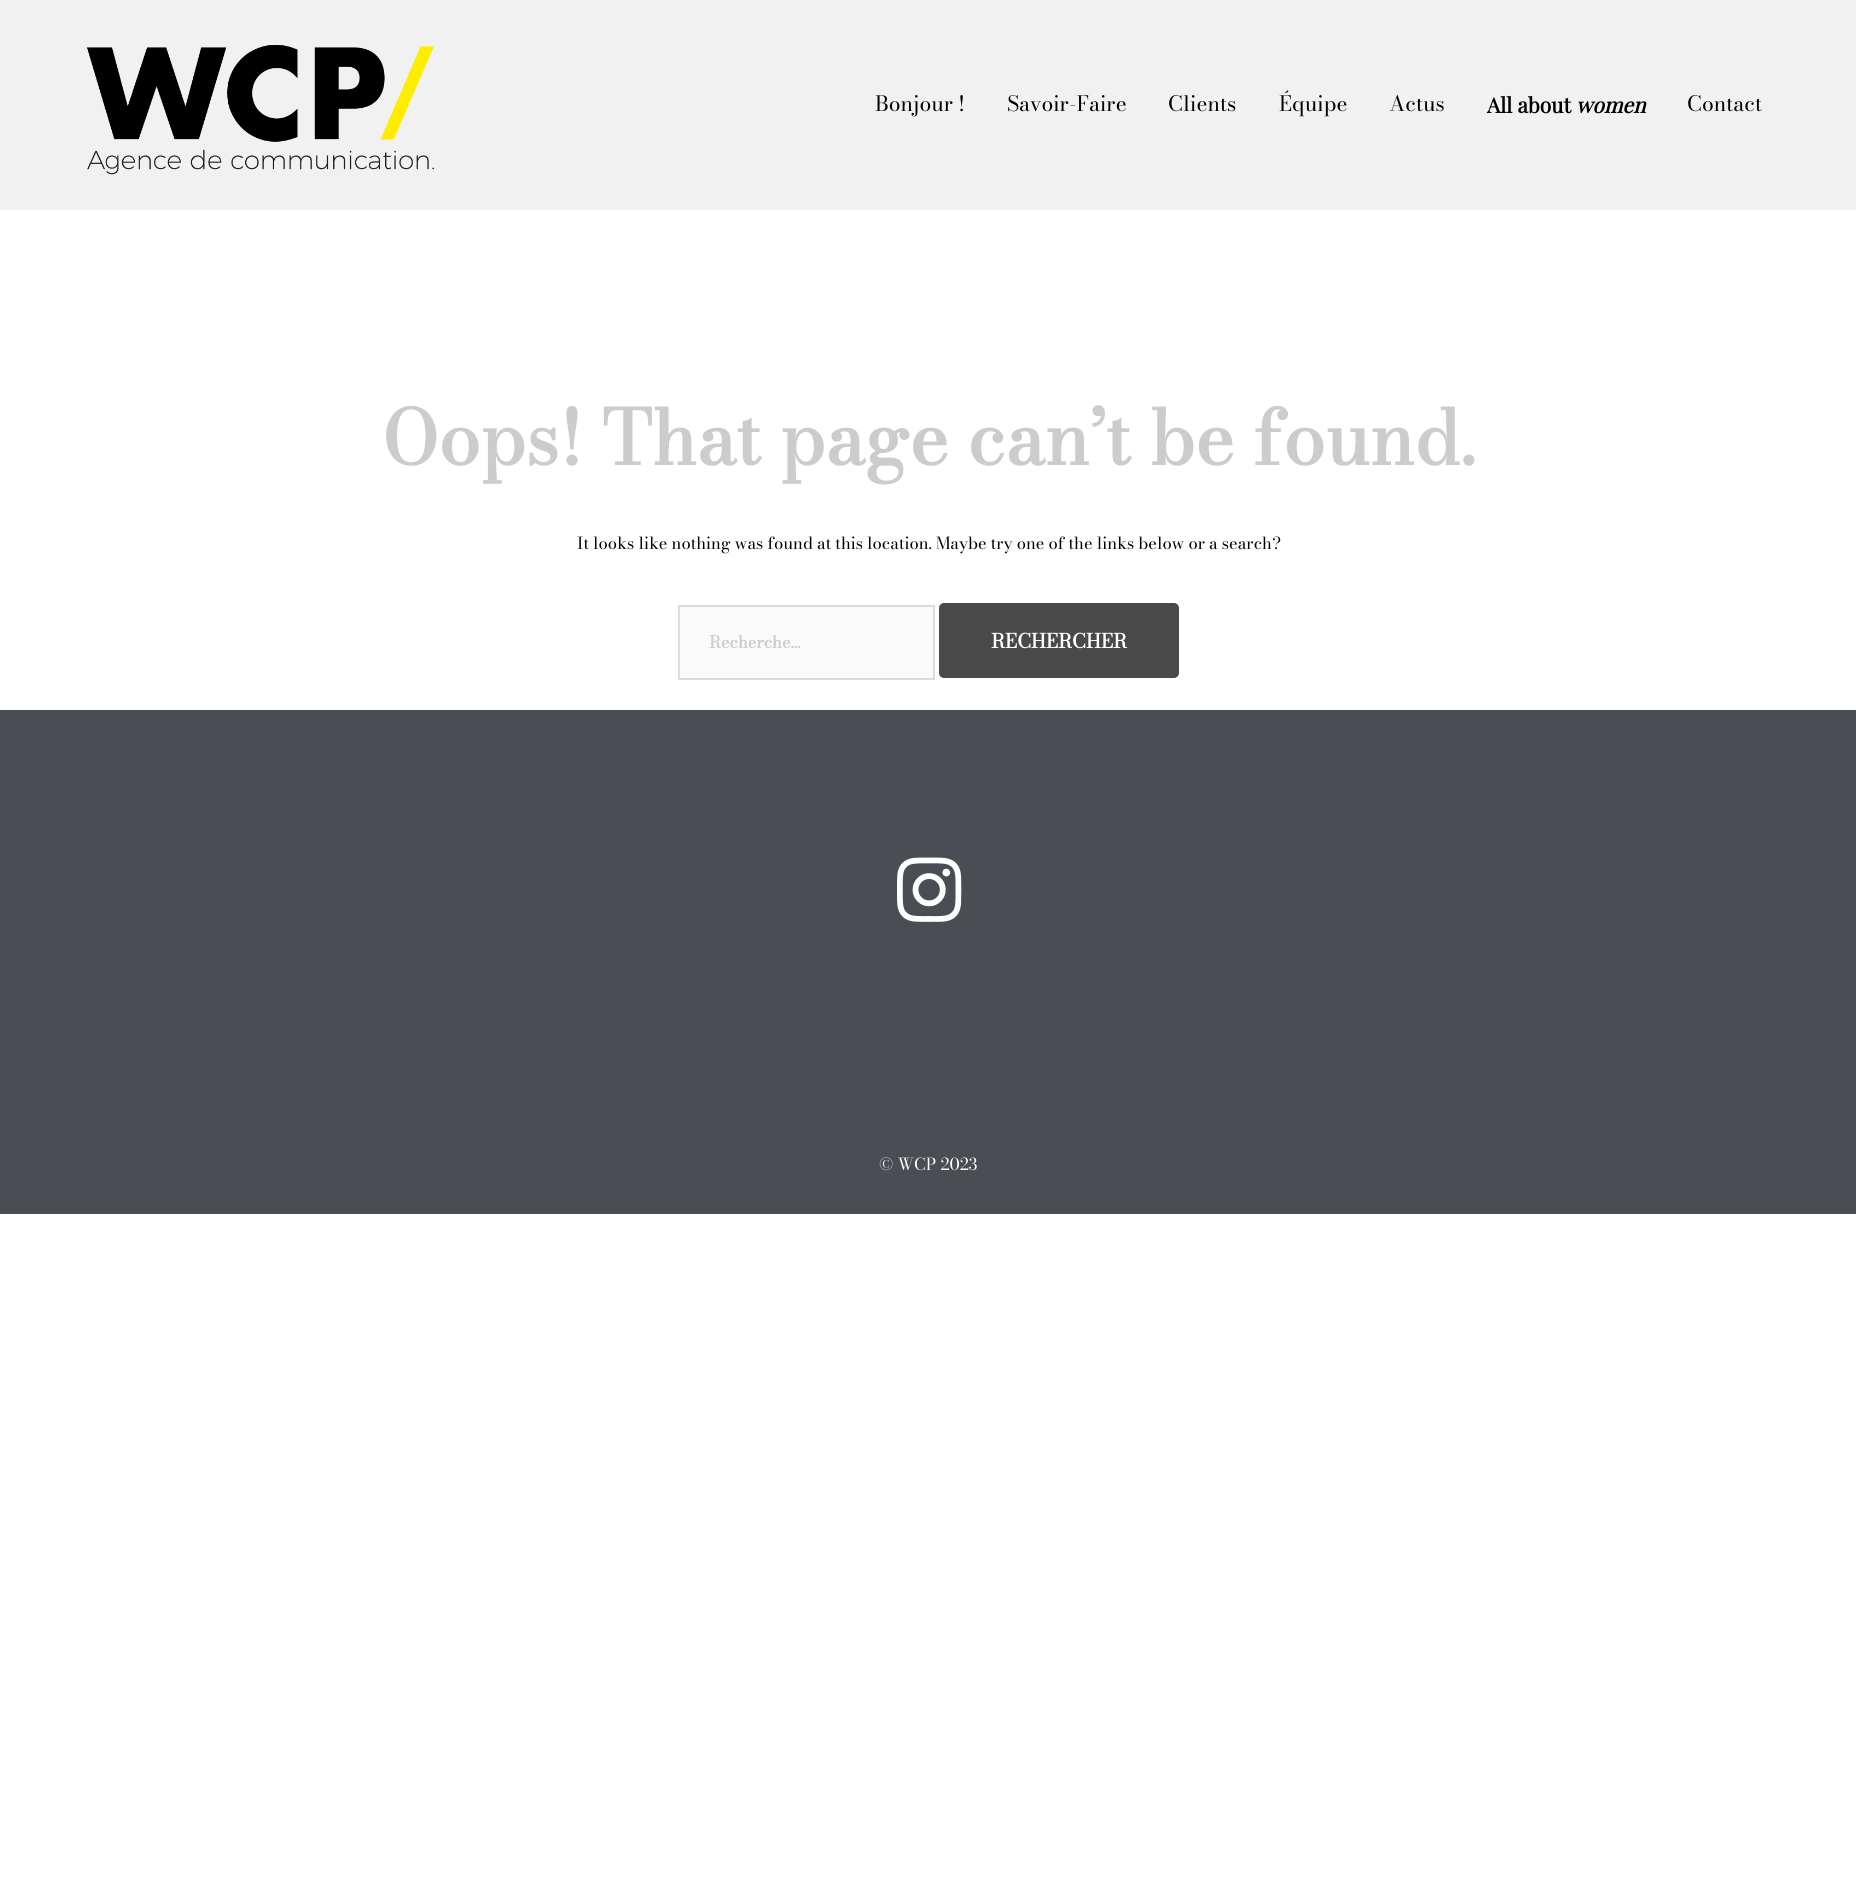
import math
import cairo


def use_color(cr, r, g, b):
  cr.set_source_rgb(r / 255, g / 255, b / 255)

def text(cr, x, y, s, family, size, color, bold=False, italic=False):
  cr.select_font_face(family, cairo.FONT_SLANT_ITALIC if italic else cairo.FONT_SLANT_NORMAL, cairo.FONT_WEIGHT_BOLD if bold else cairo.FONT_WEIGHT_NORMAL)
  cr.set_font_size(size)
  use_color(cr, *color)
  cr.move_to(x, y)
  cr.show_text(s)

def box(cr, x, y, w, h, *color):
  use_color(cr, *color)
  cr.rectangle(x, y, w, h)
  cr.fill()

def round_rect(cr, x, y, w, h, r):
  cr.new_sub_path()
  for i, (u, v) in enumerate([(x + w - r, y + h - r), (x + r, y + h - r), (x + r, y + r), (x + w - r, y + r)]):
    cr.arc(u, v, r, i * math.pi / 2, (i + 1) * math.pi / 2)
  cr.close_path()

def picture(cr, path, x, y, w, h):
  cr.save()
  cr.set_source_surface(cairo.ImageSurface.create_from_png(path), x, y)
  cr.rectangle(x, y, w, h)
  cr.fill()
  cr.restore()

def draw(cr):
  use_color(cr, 255, 255, 255)
  cr.paint()
  box(cr, 0, 0, 1856, 210, 241, 241, 241)
  picture(cr, "img_01.png", 86, 45, 349, 130)
  use_color(cr, 250, 250, 250)
  cr.rectangle(679, 606, 255, 73)
  cr.fill_preserve()
  use_color(cr, 219, 219, 219)
  cr.stroke()
  use_color(cr, 73, 73, 73)
  round_rect(cr, 940, 604, 238, 73, 4)
  cr.fill_preserve()
  cr.stroke()
  box(cr, 0, 710, 1856, 504, 74, 77, 84)
  picture(cr, "img_02.png", 897, 857, 65, 65)
  text(cr, 875, 111, "Bonjour !", "Bodoni Moda", 21, (0, 0, 0))
  text(cr, 1007, 111, "Savoir-Faire", "Bodoni Moda", 21, (0, 0, 0))
  text(cr, 1168, 111, "Clients", "Bodoni Moda", 21, (0, 0, 0))
  text(cr, 1279, 111, "Équipe", "Bodoni Moda", 21, (0, 0, 0))
  text(cr, 1389, 111, "Actus", "Bodoni Moda", 21, (0, 0, 0))
  text(cr, 1487, 113, "All about", "Playfair Display", 21, (0, 0, 0), bold=True)
  text(cr, 1576, 113, "women", "Playfair Display", 21, (0, 0, 0), bold=True, italic=True)
  text(cr, 1687, 111, "Contact", "Bodoni Moda", 21, (0, 0, 0))
  text(cr, 382, 465, "Oops! That page can’t be found.", "Bodoni Moda", 75, (204, 204, 204), bold=True)
  text(cr, 577, 549, "It looks like nothing was found at this location. Maybe try one of the links below or a search?", "Bodoni Moda", 16.5, (0, 0, 0))
  text(cr, 709, 648, "Recherche…", "Bodoni Moda", 16.5, (204, 204, 204), bold=True)
  text(cr, 991, 648, "RECHERCHER", "Bodoni Moda", 19.5, (255, 255, 255), bold=True)
  text(cr, 879, 1170, "© WCP 2023", "Bodoni Moda", 16.5, (255, 255, 255))


surface = cairo.ImageSurface(cairo.FORMAT_RGB24, 1856, 1900)
cr = cairo.Context(surface)
options = cairo.FontOptions()
options.set_hint_metrics(cairo.HINT_METRICS_OFF)
options.set_hint_style(cairo.HINT_STYLE_NONE)
cr.set_font_options(options)
cr.set_miter_limit(4)
draw(cr)
surface.write_to_png("out.png")
